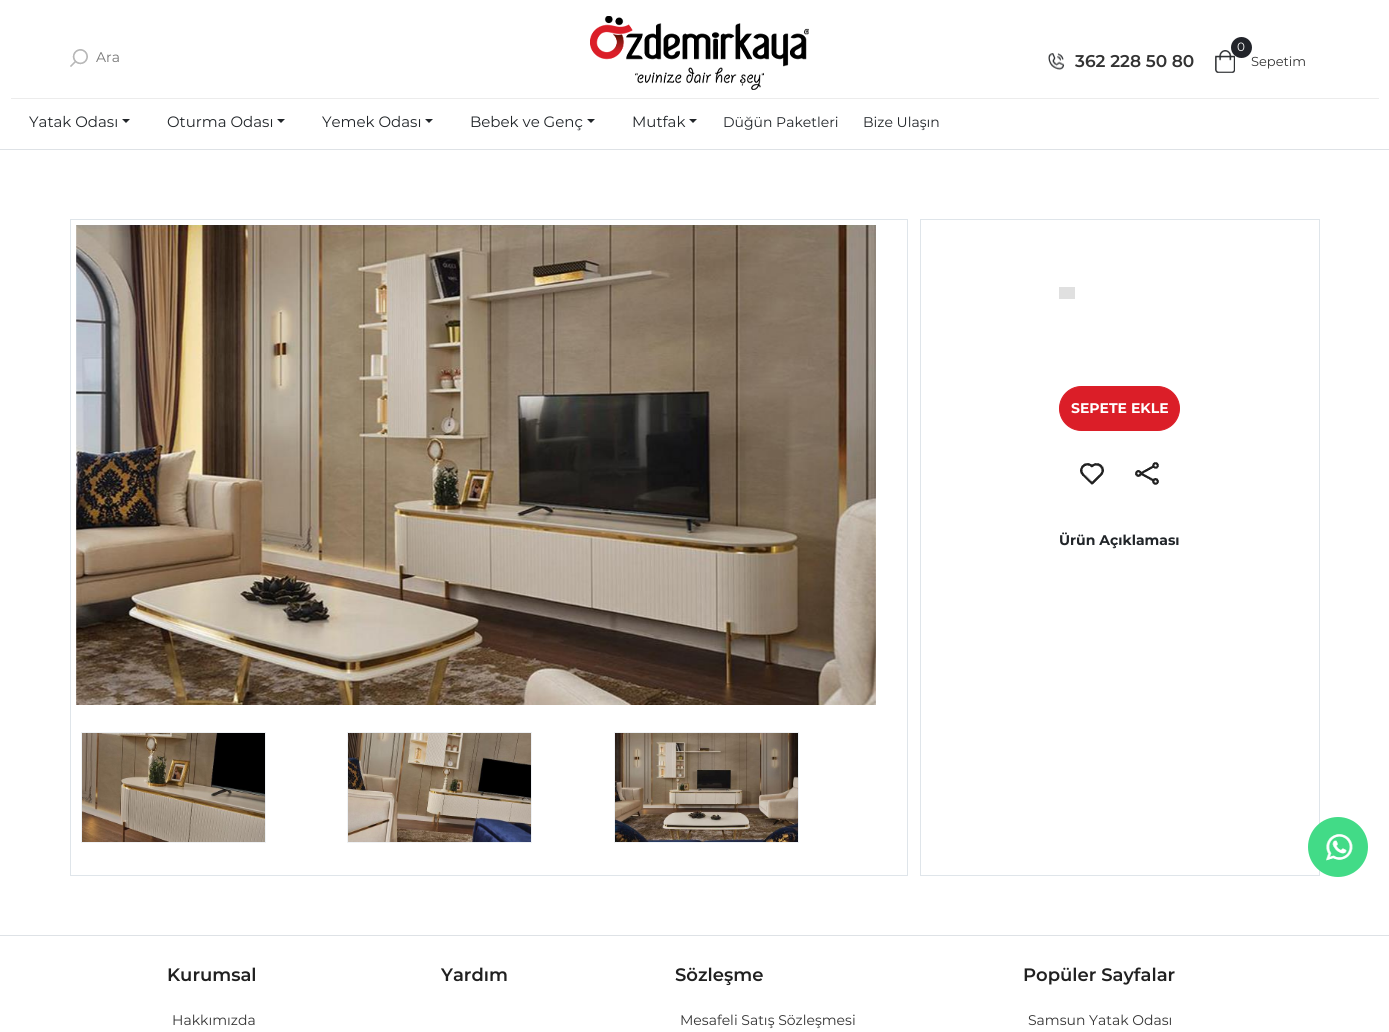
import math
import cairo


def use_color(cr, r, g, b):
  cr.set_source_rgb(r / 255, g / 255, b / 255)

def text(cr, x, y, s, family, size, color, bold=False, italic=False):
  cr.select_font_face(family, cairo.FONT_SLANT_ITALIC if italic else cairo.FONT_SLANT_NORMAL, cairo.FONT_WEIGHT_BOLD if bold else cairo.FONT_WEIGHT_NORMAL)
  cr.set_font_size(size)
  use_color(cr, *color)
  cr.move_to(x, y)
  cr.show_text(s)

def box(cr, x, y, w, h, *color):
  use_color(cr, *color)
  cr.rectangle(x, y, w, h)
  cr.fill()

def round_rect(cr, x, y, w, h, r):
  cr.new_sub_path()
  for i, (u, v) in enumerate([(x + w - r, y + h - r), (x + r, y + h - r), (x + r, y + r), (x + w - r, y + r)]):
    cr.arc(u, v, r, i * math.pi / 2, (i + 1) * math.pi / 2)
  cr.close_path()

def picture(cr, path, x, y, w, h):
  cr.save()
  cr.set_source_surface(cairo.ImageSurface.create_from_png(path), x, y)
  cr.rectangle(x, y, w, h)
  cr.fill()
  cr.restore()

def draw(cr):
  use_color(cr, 255, 255, 255)
  cr.paint()
  box(cr, 0, 149, 1389, 1, 222, 226, 230)
  picture(cr, "img_01.png", 70, 49, 18, 18)
  picture(cr, "img_02.png", 590, 16, 219, 74)
  picture(cr, "img_03.png", 1048, 53, 17, 17)
  picture(cr, "img_04.png", 1215, 50, 20, 23)
  box(cr, 11, 98, 1368, 1, 236, 236, 236)
  use_color(cr, 33, 37, 41)
  cr.new_path()
  cr.move_to(122, 119)
  cr.line_to(130, 119)
  cr.line_to(126, 123)
  cr.close_path()
  cr.fill()
  cr.new_path()
  cr.move_to(277, 119)
  cr.line_to(285, 119)
  cr.line_to(281, 123)
  cr.close_path()
  cr.fill()
  cr.new_path()
  cr.move_to(425, 119)
  cr.line_to(433, 119)
  cr.line_to(429, 123)
  cr.close_path()
  cr.fill()
  cr.new_path()
  cr.move_to(587, 119)
  cr.line_to(595, 119)
  cr.line_to(591, 123)
  cr.close_path()
  cr.fill()
  cr.new_path()
  cr.move_to(689, 119)
  cr.line_to(697, 119)
  cr.line_to(693, 123)
  cr.close_path()
  cr.fill()
  cr.rectangle(70.5, 219.5, 837, 656)
  use_color(cr, 223, 229, 234)
  cr.set_line_width(1)
  cr.stroke()
  picture(cr, "img_05.png", 76, 225, 800, 480)
  cr.rectangle(81.5, 732.5, 184, 110)
  use_color(cr, 239, 242, 245)
  cr.stroke()
  picture(cr, "img_06.png", 82, 733, 183, 109)
  cr.rectangle(347.5, 732.5, 184, 110)
  cr.stroke()
  picture(cr, "img_07.png", 348, 733, 183, 109)
  cr.rectangle(614.5, 732.5, 184, 110)
  cr.stroke()
  picture(cr, "img_08.png", 615, 733, 183, 109)
  cr.rectangle(920.5, 219.5, 399, 656)
  use_color(cr, 223, 229, 234)
  cr.stroke()
  box(cr, 1059, 287, 16, 12, 224, 224, 224)
  use_color(cr, 219, 30, 40)
  round_rect(cr, 1059.5, 386.5, 120, 44, 22)
  cr.fill_preserve()
  cr.stroke()
  picture(cr, "img_09.png", 1080, 463, 24, 22)
  picture(cr, "img_10.png", 1135, 462, 24, 23)
  box(cr, 0, 935, 1389, 1, 222, 226, 230)
  use_color(cr, 66, 219, 135)
  cr.arc(1338, 847, 30, 0, 2 * math.pi)
  cr.fill()
  picture(cr, "img_11.png", 1326, 834, 27, 27)
  text(cr, 96, 62, "Ara", "Montserrat", 14, (117, 117, 117))
  text(cr, 1075, 67, "362 228 50 80", "Montserrat SemiBold", 17, (51, 51, 51))
  text(cr, 1251, 66, "Sepetim", "Montserrat", 13, (51, 51, 51))
  use_color(cr, 34, 36, 42)
  cr.new_path()
  cr.arc(1241.5, 47.5, 10.5, 0, 2 * math.pi)
  cr.fill()
  text(cr, 1237, 51, "0", "Montserrat", 12, (255, 255, 255))
  text(cr, 29, 127, "Yatak Odası", "Montserrat", 15, (33, 37, 41))
  text(cr, 167, 127, "Oturma Odası", "Montserrat", 15, (33, 37, 41))
  text(cr, 322, 127, "Yemek Odası", "Montserrat", 15, (33, 37, 41))
  text(cr, 470, 127, "Bebek ve Genç", "Montserrat", 15, (33, 37, 41))
  text(cr, 632, 127, "Mutfak", "Montserrat", 15, (33, 37, 41))
  text(cr, 723, 127, "Düğün Paketleri", "Montserrat", 14, (33, 37, 41))
  text(cr, 863, 127, "Bize Ulaşın", "Montserrat", 14, (33, 37, 41))
  text(cr, 1071, 413, "SEPETE EKLE", "Montserrat", 14, (255, 255, 255), bold=True)
  text(cr, 1059, 545, "Ürün Açıklaması", "Montserrat", 14, (33, 37, 41), bold=True)
  text(cr, 167, 981, "Kurumsal", "Montserrat SemiBold", 18, (32, 32, 32))
  text(cr, 172, 1025, "Hakkımızda", "Montserrat", 14, (51, 51, 51))
  text(cr, 441, 981, "Yardım", "Montserrat SemiBold", 18, (32, 32, 32))
  text(cr, 675, 981, "Sözleşme", "Montserrat SemiBold", 18, (32, 32, 32))
  text(cr, 680, 1025, "Mesafeli Satış Sözleşmesi", "Montserrat", 14, (51, 51, 51))
  text(cr, 1023, 981, "Popüler Sayfalar", "Montserrat SemiBold", 18, (32, 32, 32))
  text(cr, 1028, 1025, "Samsun Yatak Odası", "Montserrat", 14, (51, 51, 51))


surface = cairo.ImageSurface(cairo.FORMAT_RGB24, 1389, 1032)
cr = cairo.Context(surface)
options = cairo.FontOptions()
options.set_hint_metrics(cairo.HINT_METRICS_OFF)
options.set_hint_style(cairo.HINT_STYLE_NONE)
cr.set_font_options(options)
cr.set_miter_limit(4)
draw(cr)
surface.write_to_png("out.png")
